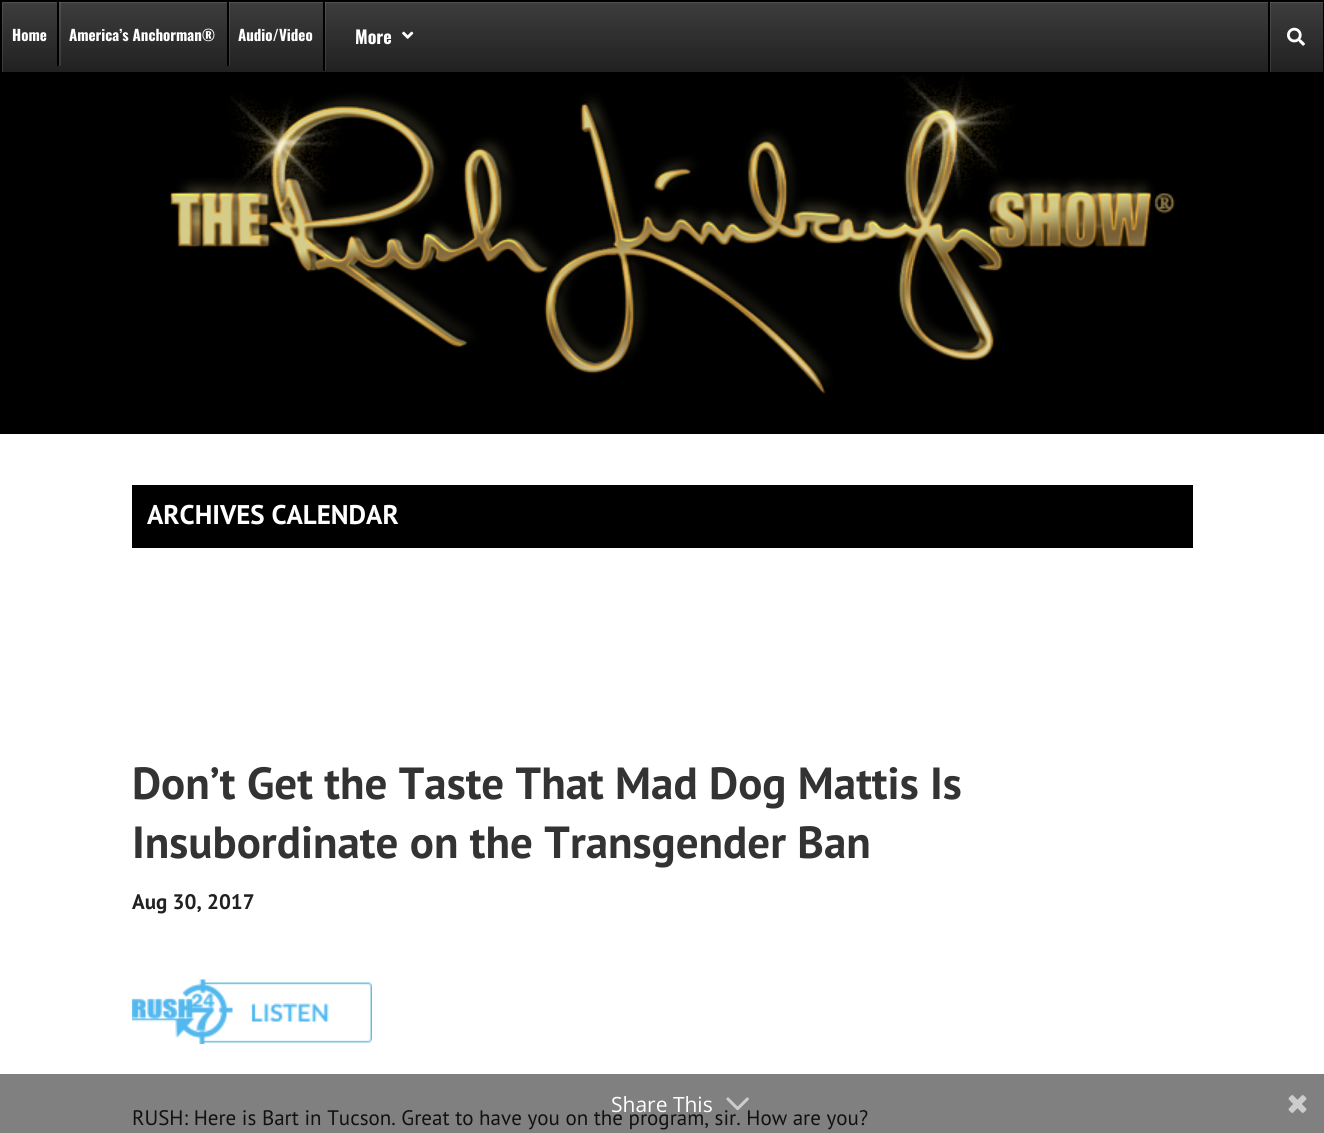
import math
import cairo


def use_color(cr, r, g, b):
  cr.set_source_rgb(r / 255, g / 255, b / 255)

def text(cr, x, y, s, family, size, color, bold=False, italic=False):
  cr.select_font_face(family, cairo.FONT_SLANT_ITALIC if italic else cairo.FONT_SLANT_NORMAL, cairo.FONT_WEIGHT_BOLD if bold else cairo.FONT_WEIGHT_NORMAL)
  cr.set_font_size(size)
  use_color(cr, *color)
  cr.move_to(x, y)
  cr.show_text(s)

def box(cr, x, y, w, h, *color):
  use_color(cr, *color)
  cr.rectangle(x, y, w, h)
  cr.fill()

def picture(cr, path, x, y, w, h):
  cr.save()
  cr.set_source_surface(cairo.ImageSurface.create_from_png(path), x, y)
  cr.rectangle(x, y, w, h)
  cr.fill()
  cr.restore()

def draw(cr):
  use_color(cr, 255, 255, 255)
  cr.paint()
  box(cr, 0, 1074, 1324, 59, 128, 128, 128)
  gradient = cairo.LinearGradient(662, 1.5, 662, 72)
  gradient.add_color_stop_rgba(0, 0.239, 0.239, 0.239, 1)
  gradient.add_color_stop_rgba(1, 0.129, 0.129, 0.129, 1)
  cr.set_source(gradient)
  cr.rectangle(2, 2, 1321, 70)
  cr.fill()
  cr.save()
  cr.rectangle(2, 2, 1321, 70)
  cr.clip()
  cr.set_source_rgba(1, 1, 1, 0.1)
  cr.set_fill_rule(cairo.FILL_RULE_EVEN_ODD)
  cr.new_path()
  cr.move_to(-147, -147)
  cr.line_to(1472, -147)
  cr.line_to(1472, 220)
  cr.line_to(-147, 220)
  cr.close_path()
  cr.move_to(3, 3)
  cr.line_to(1324, 3)
  cr.line_to(1324, 74)
  cr.line_to(3, 74)
  cr.close_path()
  cr.fill()
  cr.restore()
  cr.rectangle(1, 1, 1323, 72)
  use_color(cr, 0, 0, 0)
  cr.stroke()
  cr.set_source_rgba(1, 1, 1, 0.1)
  cr.rectangle(59, 2, 2, 64)
  cr.fill()
  box(cr, 57, 2, 2, 64, 0, 0, 0)
  cr.set_source_rgba(1, 1, 1, 0.1)
  cr.rectangle(229, 2, 1, 64)
  cr.fill()
  box(cr, 227, 2, 2, 64, 0, 0, 0)
  cr.set_source_rgba(1, 1, 1, 0.1)
  cr.rectangle(325, 2, 1, 69)
  cr.fill()
  box(cr, 323, 2, 2, 69, 0, 0, 0)
  picture(cr, "img_01.png", 402, 31, 12, 8)
  cr.set_source_rgba(1, 1, 1, 0.1)
  cr.rectangle(1270, 2, 1, 70)
  cr.fill()
  box(cr, 1268, 2, 2, 70, 0, 0, 0)
  picture(cr, "img_02.png", 1287, 27, 18, 19)
  box(cr, 0, 74, 1324, 360, 0, 0, 0)
  picture(cr, "img_03.png", 170, 75, 1005, 319)
  box(cr, 132, 485, 1061, 63, 0, 0, 0)
  picture(cr, "img_04.png", 132, 979, 240, 65)
  picture(cr, "img_06.png", 1288, 1095, 19, 18)
  text(cr, 12, 41, "Home", "Oswald", 15, (255, 255, 255), bold=True)
  text(cr, 69, 41, "America’s Anchorman®", "Oswald", 15, (255, 255, 255), bold=True)
  text(cr, 238, 41, "Audio/Video", "Oswald", 15, (255, 255, 255), bold=True)
  text(cr, 355, 44, "More", "Oswald", 18, (255, 255, 255), bold=True)
  text(cr, 147, 524, "ARCHIVES CALENDAR", "PT Sans", 27, (255, 255, 255), bold=True)
  text(cr, 132, 799, "Don’t Get the Taste That Mad Dog Mattis Is", "PT Sans", 45, (51, 51, 51), bold=True)
  text(cr, 132, 858, "Insubordinate on the Transgender Ban", "PT Sans", 45, (51, 51, 51), bold=True)
  text(cr, 132, 909, "Aug 30, 2017", "PT Sans", 21, (33, 33, 33), bold=True)
  text(cr, 132, 1125, "RUSH: Here is Bart in Tucson. Great to have you on the program, sir. How are you?", "PT Sans", 21, (17, 17, 17))
  text(cr, 611, 1112, "Share This", "Open Sans", 21, (255, 255, 255))
  picture(cr, "img_05.png", 726, 1097, 23, 14)


surface = cairo.ImageSurface(cairo.FORMAT_RGB24, 1324, 1133)
cr = cairo.Context(surface)
options = cairo.FontOptions()
options.set_hint_metrics(cairo.HINT_METRICS_OFF)
options.set_hint_style(cairo.HINT_STYLE_NONE)
cr.set_font_options(options)
cr.set_miter_limit(4)
draw(cr)
surface.write_to_png("out.png")
